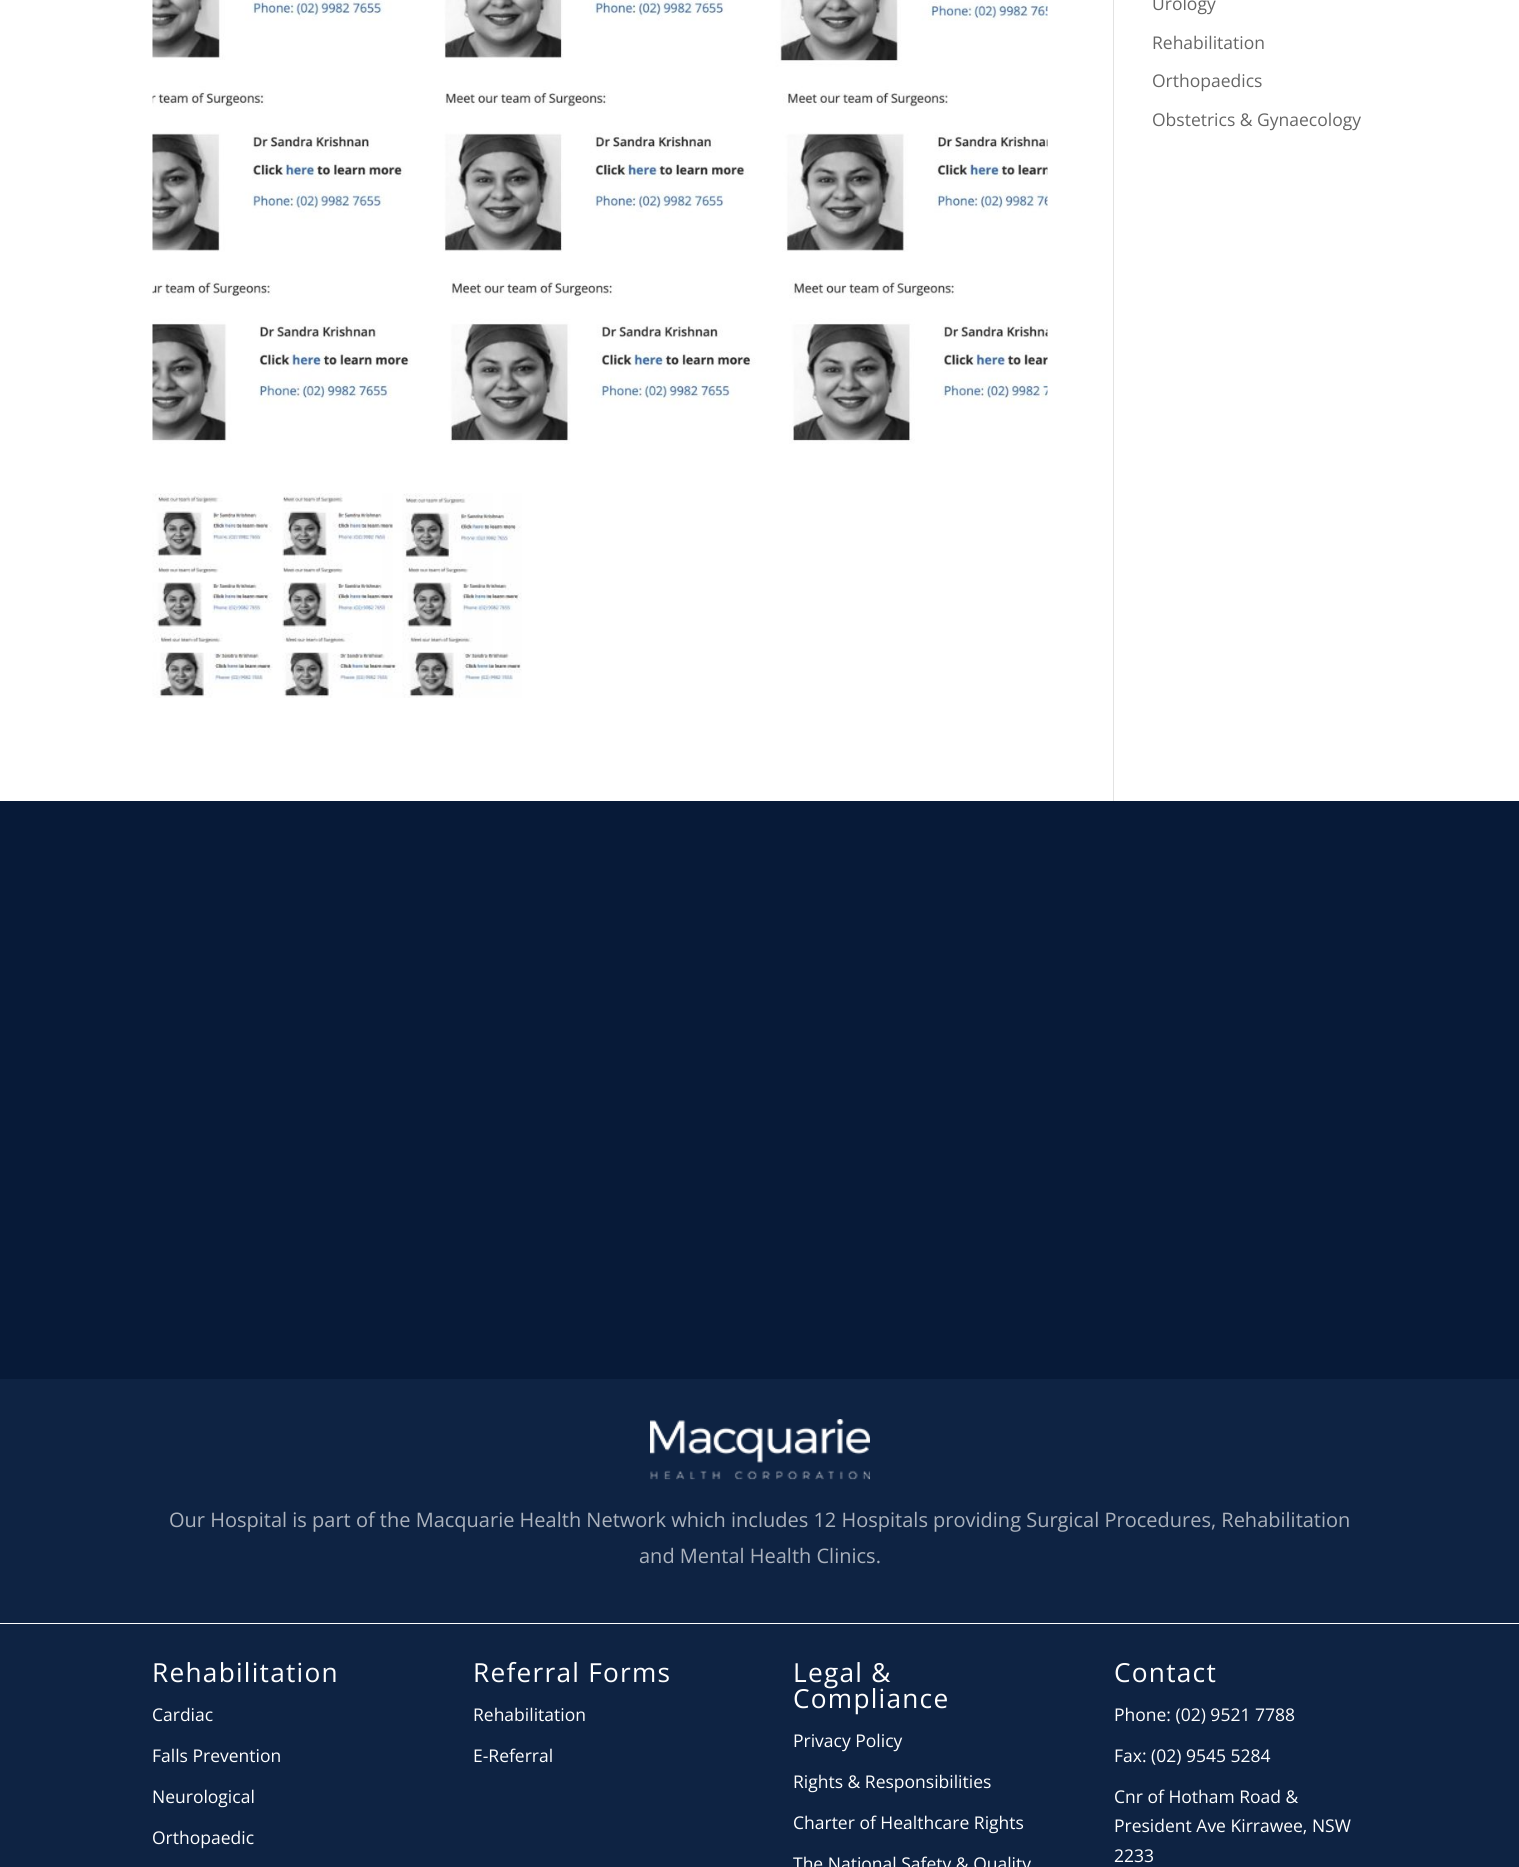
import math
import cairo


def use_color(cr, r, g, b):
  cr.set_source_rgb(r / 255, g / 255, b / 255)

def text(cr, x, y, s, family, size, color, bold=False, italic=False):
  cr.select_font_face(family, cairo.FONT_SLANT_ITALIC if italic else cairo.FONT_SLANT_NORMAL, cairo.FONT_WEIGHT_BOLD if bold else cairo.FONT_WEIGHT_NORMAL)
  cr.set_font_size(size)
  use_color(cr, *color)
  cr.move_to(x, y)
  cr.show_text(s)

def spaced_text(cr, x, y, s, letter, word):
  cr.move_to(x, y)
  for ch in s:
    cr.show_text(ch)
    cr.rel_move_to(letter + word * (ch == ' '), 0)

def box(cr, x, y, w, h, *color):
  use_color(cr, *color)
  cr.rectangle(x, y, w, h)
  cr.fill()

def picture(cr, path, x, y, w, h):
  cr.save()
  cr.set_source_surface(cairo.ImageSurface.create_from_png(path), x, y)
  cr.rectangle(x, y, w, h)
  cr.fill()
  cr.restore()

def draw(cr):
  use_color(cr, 255, 255, 255)
  cr.paint()
  box(cr, 1113, 0, 1, 801, 226, 226, 226)
  picture(cr, "img_01.png", 152, 0, 896, 444)
  picture(cr, "img_02.png", 152, 493, 370, 205)
  box(cr, 0, 801, 1519, 578, 7, 26, 56)
  box(cr, 0, 1379, 1519, 244, 14, 35, 67)
  picture(cr, "img_03.png", 650, 1419, 220, 61)
  cr.new_path()
  cr.move_to(1, 1624)
  cr.line_to(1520, 1624)
  cr.line_to(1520, 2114)
  cr.curve_to(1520, 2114, 1519, 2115, 1519, 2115)
  cr.line_to(1, 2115)
  cr.curve_to(1, 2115, 0, 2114, 0, 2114)
  cr.line_to(0, 1624)
  cr.close_path()
  cr.fill()
  text(cr, 1152, 10, "Urology", "Open Sans", 17.5, (102, 102, 102))
  text(cr, 1152, 49, "Rehabilitation", "Open Sans", 17.5, (102, 102, 102))
  text(cr, 1152, 87, "Orthopaedics", "Open Sans", 17.5, (102, 102, 102))
  text(cr, 1152, 126, "Obstetrics & Gynaecology", "Open Sans", 17.5, (102, 102, 102))
  text(cr, 169, 1527, "Our Hospital is part of the Macquarie Health Network which includes 12 Hospitals providing Surgical Procedures, Rehabilitation", "Open Sans", 20, (171, 178, 189))
  text(cr, 639, 1563, "and Mental Health Clinics.", "Open Sans", 20, (171, 178, 189))
  cr.set_font_size(26.25)
  use_color(cr, 255, 255, 255)
  spaced_text(cr, 152, 1682, "Rehabilitation", 1.25, 0)
  text(cr, 152, 1721, "Cardiac", "Open Sans", 17.5, (255, 255, 255))
  text(cr, 152, 1762, "Falls Prevention", "Open Sans", 17.5, (255, 255, 255))
  text(cr, 152, 1803, "Neurological", "Open Sans", 17.5, (255, 255, 255))
  text(cr, 152, 1844, "Orthopaedic", "Open Sans", 17.5, (255, 255, 255))
  cr.set_font_size(26.25)
  spaced_text(cr, 473, 1682, "Referral Forms", 1.25, 0)
  text(cr, 473, 1721, "Rehabilitation", "Open Sans", 17.5, (255, 255, 255))
  text(cr, 473, 1762, "E-Referral", "Open Sans", 17.5, (255, 255, 255))
  cr.set_font_size(26.25)
  spaced_text(cr, 793, 1682, "Legal &", 1.25, 0)
  spaced_text(cr, 793, 1708, "Compliance", 1.25, 0)
  text(cr, 793, 1747, "Privacy Policy", "Open Sans", 17.5, (255, 255, 255))
  text(cr, 793, 1788, "Rights & Responsibilities", "Open Sans", 17.5, (255, 255, 255))
  text(cr, 793, 1829, "Charter of Healthcare Rights", "Open Sans", 17.5, (255, 255, 255))
  text(cr, 793, 1870, "The National Safety & Quality", "Open Sans", 17.5, (255, 255, 255))
  cr.set_font_size(26.25)
  spaced_text(cr, 1114, 1682, "Contact", 1.25, 0)
  text(cr, 1114, 1721, "Phone: (02) 9521 7788", "Open Sans", 17.5, (255, 255, 255))
  text(cr, 1114, 1762, "Fax: (02) 9545 5284", "Open Sans", 17.5, (255, 255, 255))
  text(cr, 1114, 1803, "Cnr of Hotham Road &", "Open Sans", 17.5, (255, 255, 255))
  text(cr, 1114, 1832, "President Ave Kirrawee, NSW", "Open Sans", 17.5, (255, 255, 255))
  text(cr, 1114, 1862, "2233", "Open Sans", 17.5, (255, 255, 255))


surface = cairo.ImageSurface(cairo.FORMAT_RGB24, 1519, 1867)
cr = cairo.Context(surface)
options = cairo.FontOptions()
options.set_hint_metrics(cairo.HINT_METRICS_OFF)
options.set_hint_style(cairo.HINT_STYLE_NONE)
cr.set_font_options(options)
cr.set_miter_limit(4)
draw(cr)
surface.write_to_png("out.png")
